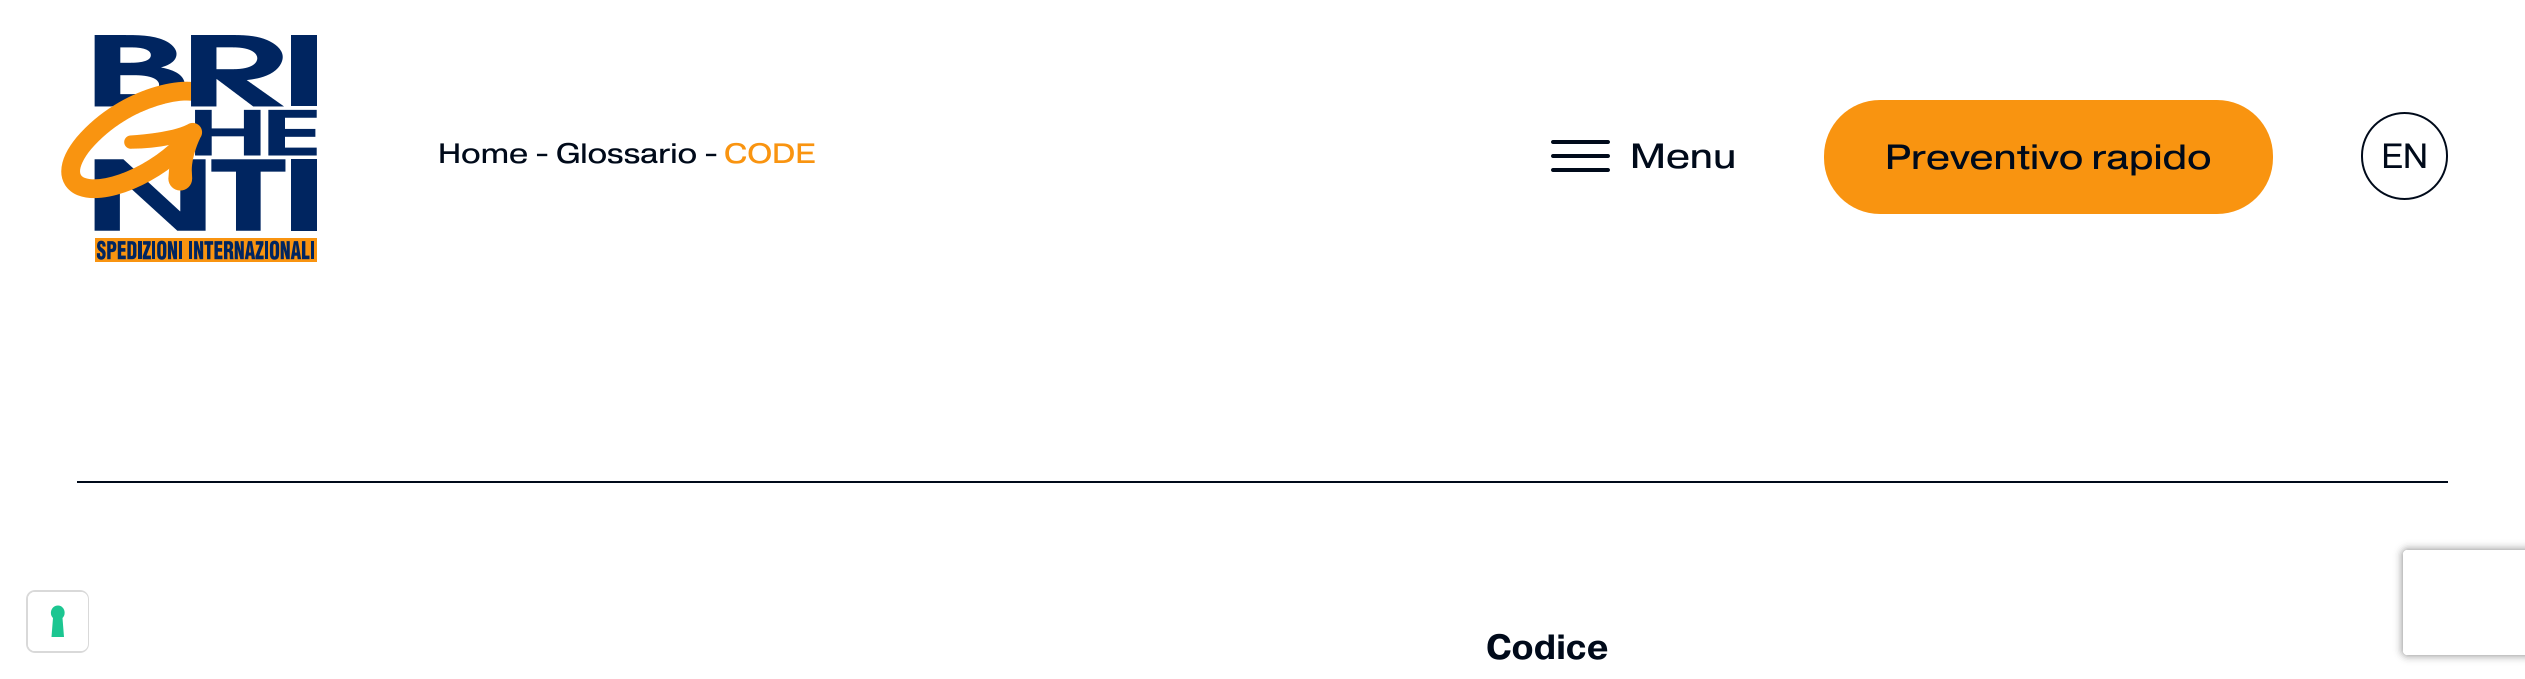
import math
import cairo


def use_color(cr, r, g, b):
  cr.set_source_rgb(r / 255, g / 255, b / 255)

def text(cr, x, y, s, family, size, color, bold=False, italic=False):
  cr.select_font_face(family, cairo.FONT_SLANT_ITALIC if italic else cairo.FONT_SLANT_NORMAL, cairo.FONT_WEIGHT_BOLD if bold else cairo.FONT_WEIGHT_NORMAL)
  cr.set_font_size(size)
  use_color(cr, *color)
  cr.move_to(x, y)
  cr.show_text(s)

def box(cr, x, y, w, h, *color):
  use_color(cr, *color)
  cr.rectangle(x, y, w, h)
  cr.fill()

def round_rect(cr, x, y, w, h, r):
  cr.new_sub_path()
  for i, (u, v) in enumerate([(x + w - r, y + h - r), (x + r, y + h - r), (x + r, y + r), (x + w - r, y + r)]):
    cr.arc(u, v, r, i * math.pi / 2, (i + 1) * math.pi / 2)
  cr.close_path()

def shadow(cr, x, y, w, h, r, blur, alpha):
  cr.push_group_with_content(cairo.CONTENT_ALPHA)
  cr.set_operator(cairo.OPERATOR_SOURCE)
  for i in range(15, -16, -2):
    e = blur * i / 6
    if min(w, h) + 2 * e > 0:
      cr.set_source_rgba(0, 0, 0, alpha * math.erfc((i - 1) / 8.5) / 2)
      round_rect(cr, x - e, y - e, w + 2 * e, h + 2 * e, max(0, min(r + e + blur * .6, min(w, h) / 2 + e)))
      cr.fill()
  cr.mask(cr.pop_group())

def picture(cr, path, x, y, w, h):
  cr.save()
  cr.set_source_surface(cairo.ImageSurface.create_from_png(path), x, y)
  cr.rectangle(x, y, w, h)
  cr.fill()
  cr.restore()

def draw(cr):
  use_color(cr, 255, 255, 255)
  cr.paint()
  box(cr, 77, 481, 2371, 2, 0, 10, 26)
  picture(cr, "img_01.png", 61, 35, 256, 227)
  round_rect(cr, 1551, 140, 59, 4, 2)
  cr.fill()
  round_rect(cr, 1551, 154, 59, 4, 2)
  cr.fill()
  round_rect(cr, 1551, 168, 59, 4, 2)
  cr.fill()
  use_color(cr, 249, 148, 16)
  round_rect(cr, 1825, 101, 447, 112, 55)
  cr.fill_preserve()
  cr.stroke()
  round_rect(cr, 2362, 113, 85, 86, 42.5)
  use_color(cr, 0, 10, 26)
  cr.stroke()
  round_rect(cr, 27, 591, 61, 61, 8)
  use_color(cr, 217, 217, 217)
  cr.stroke()
  use_color(cr, 255, 255, 255)
  round_rect(cr, 28, 592, 60, 59, 7)
  cr.fill()
  use_color(cr, 28, 198, 145)
  cr.set_fill_rule(cairo.FILL_RULE_EVEN_ODD)
  cr.new_path()
  cr.move_to(58, 605.5)
  cr.curve_to(64, 605.5, 67, 613.5, 62.5, 618)
  cr.line_to(64, 637)
  cr.line_to(51.5, 637)
  cr.line_to(53, 618)
  cr.curve_to(48.5, 613.5, 51.5, 605.5, 58, 605.5)
  cr.close_path()
  cr.fill()
  cr.save()
  cr.new_path()
  cr.move_to(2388, 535)
  cr.line_to(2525, 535)
  cr.line_to(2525, 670)
  cr.line_to(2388, 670)
  cr.close_path()
  cr.move_to(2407, 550)
  cr.line_to(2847, 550)
  cr.curve_to(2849, 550, 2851, 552, 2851, 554)
  cr.line_to(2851, 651)
  cr.curve_to(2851, 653, 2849, 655, 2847, 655)
  cr.line_to(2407, 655)
  cr.curve_to(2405, 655, 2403, 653, 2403, 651)
  cr.line_to(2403, 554)
  cr.curve_to(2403, 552, 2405, 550, 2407, 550)
  cr.close_path()
  cr.clip()
  use_color(cr, 128, 128, 128)
  shadow(cr, 2403, 550, 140, 105, 4, 4.5, 1)
  cr.restore()
  text(cr, 438, 163, "Home - Glossario -", "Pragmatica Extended", 28, (0, 10, 26))
  text(cr, 724, 163, "CODE", "Pragmatica Extended", 28, (249, 148, 16))
  text(cr, 1486, 659, "Codice", "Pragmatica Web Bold", 35, (0, 10, 26), bold=True)
  text(cr, 1630, 168, "Menu", "Pragmatica Extended", 35, (0, 10, 26))
  text(cr, 1885, 169, "Preventivo rapido", "Pragmatica Extended", 35, (0, 10, 26))
  text(cr, 2381, 168, "EN", "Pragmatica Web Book", 35, (0, 10, 26))


surface = cairo.ImageSurface(cairo.FORMAT_RGB24, 2525, 679)
cr = cairo.Context(surface)
options = cairo.FontOptions()
options.set_hint_metrics(cairo.HINT_METRICS_OFF)
options.set_hint_style(cairo.HINT_STYLE_NONE)
cr.set_font_options(options)
cr.set_miter_limit(4)
draw(cr)
surface.write_to_png("out.png")
